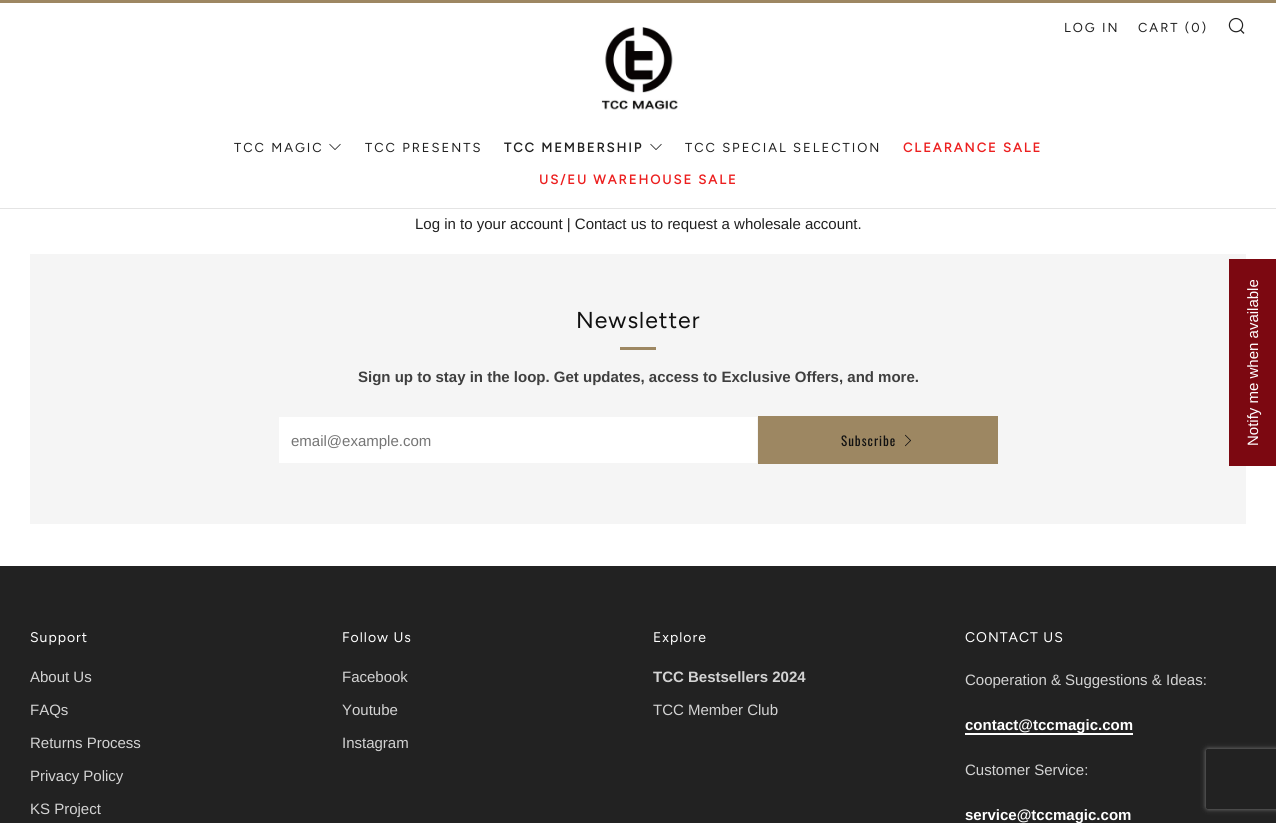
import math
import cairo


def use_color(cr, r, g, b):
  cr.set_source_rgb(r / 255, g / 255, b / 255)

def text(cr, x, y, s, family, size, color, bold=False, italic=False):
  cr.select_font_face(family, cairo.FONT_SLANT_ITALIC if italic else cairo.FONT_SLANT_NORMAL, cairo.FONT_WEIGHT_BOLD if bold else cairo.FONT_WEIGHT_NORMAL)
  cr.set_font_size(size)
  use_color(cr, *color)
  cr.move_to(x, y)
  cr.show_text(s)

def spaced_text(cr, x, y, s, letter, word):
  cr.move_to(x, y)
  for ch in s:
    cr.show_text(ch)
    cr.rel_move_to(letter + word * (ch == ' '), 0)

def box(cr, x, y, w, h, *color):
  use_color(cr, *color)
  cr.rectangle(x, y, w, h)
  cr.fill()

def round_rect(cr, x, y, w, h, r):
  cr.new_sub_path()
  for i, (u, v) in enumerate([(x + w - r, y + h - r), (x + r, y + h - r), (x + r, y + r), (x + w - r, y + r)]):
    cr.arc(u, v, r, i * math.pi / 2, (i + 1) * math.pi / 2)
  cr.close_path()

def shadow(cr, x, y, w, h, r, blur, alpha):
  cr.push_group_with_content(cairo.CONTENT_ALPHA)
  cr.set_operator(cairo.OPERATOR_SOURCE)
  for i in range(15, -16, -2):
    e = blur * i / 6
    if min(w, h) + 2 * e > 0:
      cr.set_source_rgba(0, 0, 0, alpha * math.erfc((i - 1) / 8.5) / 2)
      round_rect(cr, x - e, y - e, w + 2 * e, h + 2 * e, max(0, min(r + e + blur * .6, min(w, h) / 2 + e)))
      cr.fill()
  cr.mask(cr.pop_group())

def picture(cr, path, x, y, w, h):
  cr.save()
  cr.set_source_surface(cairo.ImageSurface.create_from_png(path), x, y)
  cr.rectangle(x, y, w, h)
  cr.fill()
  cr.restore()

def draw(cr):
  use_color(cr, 255, 255, 255)
  cr.paint()
  box(cr, 0, 208, 1276, 1, 228, 228, 228)
  box(cr, 0, 0, 1276, 3, 157, 135, 98)
  picture(cr, "img_01.png", 1228, 17, 17, 17)
  picture(cr, "img_02.png", 329, 143, 12, 7)
  picture(cr, "img_02.png", 650, 143, 12, 7)
  picture(cr, "img_03.png", 601, 27, 77, 83)
  box(cr, 30, 254, 1216, 270, 245, 245, 245)
  box(cr, 620, 347, 36, 3, 157, 135, 98)
  box(cr, 279, 417, 478, 46, 255, 255, 255)
  box(cr, 758, 416, 240, 48, 157, 135, 98)
  picture(cr, "img_04.png", 905, 434, 6, 13)
  box(cr, 0, 566, 1276, 257, 34, 34, 34)
  box(cr, 965, 733, 168, 2, 255, 255, 255)
  box(cr, 1229, 259, 47, 207, 124, 8, 17)
  cr.save()
  cr.set_fill_rule(cairo.FILL_RULE_EVEN_ODD)
  cr.new_path()
  cr.move_to(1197, 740)
  cr.line_to(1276, 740)
  cr.line_to(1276, 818)
  cr.line_to(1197, 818)
  cr.close_path()
  cr.move_to(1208, 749)
  cr.line_to(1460, 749)
  cr.curve_to(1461, 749, 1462, 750, 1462, 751)
  cr.line_to(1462, 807)
  cr.curve_to(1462, 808, 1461, 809, 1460, 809)
  cr.line_to(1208, 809)
  cr.curve_to(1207, 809, 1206, 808, 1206, 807)
  cr.line_to(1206, 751)
  cr.curve_to(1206, 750, 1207, 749, 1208, 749)
  cr.close_path()
  cr.clip()
  use_color(cr, 128, 128, 128)
  shadow(cr, 1206, 749, 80, 60, 2, 2.5, 1)
  cr.restore()
  cr.select_font_face("Figtree")
  cr.set_font_size(13)
  use_color(cr, 33, 33, 33)
  spaced_text(cr, 1064, 32, "LOG IN", 2, 0)
  spaced_text(cr, 1138, 32, "CART (0)", 2, 0)
  spaced_text(cr, 234, 152, "TCC MAGIC", 2, 0)
  spaced_text(cr, 365, 152, "TCC PRESENTS", 2, 0)
  cr.select_font_face("Figtree", cairo.FONT_SLANT_NORMAL, cairo.FONT_WEIGHT_BOLD)
  spaced_text(cr, 504, 152, "TCC MEMBERSHIP", 2, 0)
  cr.select_font_face("Figtree")
  spaced_text(cr, 685, 152, "TCC SPECIAL SELECTION", 2, 0)
  cr.select_font_face("Figtree", cairo.FONT_SLANT_NORMAL, cairo.FONT_WEIGHT_BOLD)
  use_color(cr, 236, 31, 31)
  spaced_text(cr, 903, 152, "CLEARANCE SALE", 2, 0)
  spaced_text(cr, 539, 184, "US/EU WAREHOUSE SALE", 2, 0)
  text(cr, 415, 229, "Log in to your account | Contact us to request a wholesale account.", "Arimo", 15, (33, 33, 33))
  cr.select_font_face("Figtree")
  cr.set_font_size(23)
  use_color(cr, 17, 17, 17)
  spaced_text(cr, 576, 328, "Newsletter", 1, 0)
  text(cr, 358, 382, "Sign up to stay in the loop. Get updates, access to Exclusive Offers, and more.", "Arimo", 15, (63, 63, 63), bold=True)
  text(cr, 291, 446, "email@example.com", "Arimo", 15, (117, 117, 117))
  cr.select_font_face("Oswald")
  cr.set_font_size(13)
  use_color(cr, 17, 17, 17)
  spaced_text(cr, 841, 446, "Subscribe", 1, 0)
  cr.select_font_face("Figtree")
  cr.set_font_size(14)
  use_color(cr, 255, 255, 255)
  spaced_text(cr, 30, 642, "Support", 1, 0)
  text(cr, 30, 682, "About Us", "Arimo", 15, (211, 211, 211))
  text(cr, 30, 715, "FAQs", "Arimo", 15, (211, 211, 211))
  text(cr, 30, 748, "Returns Process", "Arimo", 15, (211, 211, 211))
  text(cr, 30, 781, "Privacy Policy", "Arimo", 15, (211, 211, 211))
  text(cr, 30, 814, "KS Project", "Arimo", 15, (211, 211, 211))
  cr.select_font_face("Figtree")
  cr.set_font_size(14)
  use_color(cr, 255, 255, 255)
  spaced_text(cr, 342, 642, "Follow Us", 1, 0)
  text(cr, 342, 682, "Facebook", "Arimo", 15, (211, 211, 211))
  text(cr, 342, 715, "Youtube", "Arimo", 15, (211, 211, 211))
  text(cr, 342, 748, "Instagram", "Arimo", 15, (211, 211, 211))
  cr.select_font_face("Figtree")
  cr.set_font_size(14)
  use_color(cr, 255, 255, 255)
  spaced_text(cr, 653, 642, "Explore", 1, 0)
  text(cr, 653, 682, "TCC Bestsellers 2024", "Arimo", 15, (211, 211, 211), bold=True)
  text(cr, 653, 715, "TCC Member Club", "Arimo", 15, (211, 211, 211))
  cr.select_font_face("Figtree")
  cr.set_font_size(14)
  use_color(cr, 255, 255, 255)
  spaced_text(cr, 965, 642, "CONTACT US", 1, 0)
  text(cr, 965, 685, "Cooperation & Suggestions & Ideas:", "Arimo", 15, (211, 211, 211))
  text(cr, 965, 730, "contact@tccmagic.com", "Arimo", 15, (255, 255, 255), bold=True)
  text(cr, 965, 775, "Customer Service:", "Arimo", 15, (211, 211, 211))
  text(cr, 965, 820, "service@tccmagic.com", "Arimo", 15, (255, 255, 255), bold=True)
  cr.save()
  cr.translate(1258, 446)
  cr.rotate(-90 * math.pi / 180)
  text(cr, 0, 0, "Notify me when available", "Arimo", 15, (255, 255, 255))
  cr.restore()


surface = cairo.ImageSurface(cairo.FORMAT_RGB24, 1276, 823)
cr = cairo.Context(surface)
options = cairo.FontOptions()
options.set_hint_metrics(cairo.HINT_METRICS_OFF)
options.set_hint_style(cairo.HINT_STYLE_NONE)
cr.set_font_options(options)
cr.set_miter_limit(4)
draw(cr)
surface.write_to_png("out.png")
